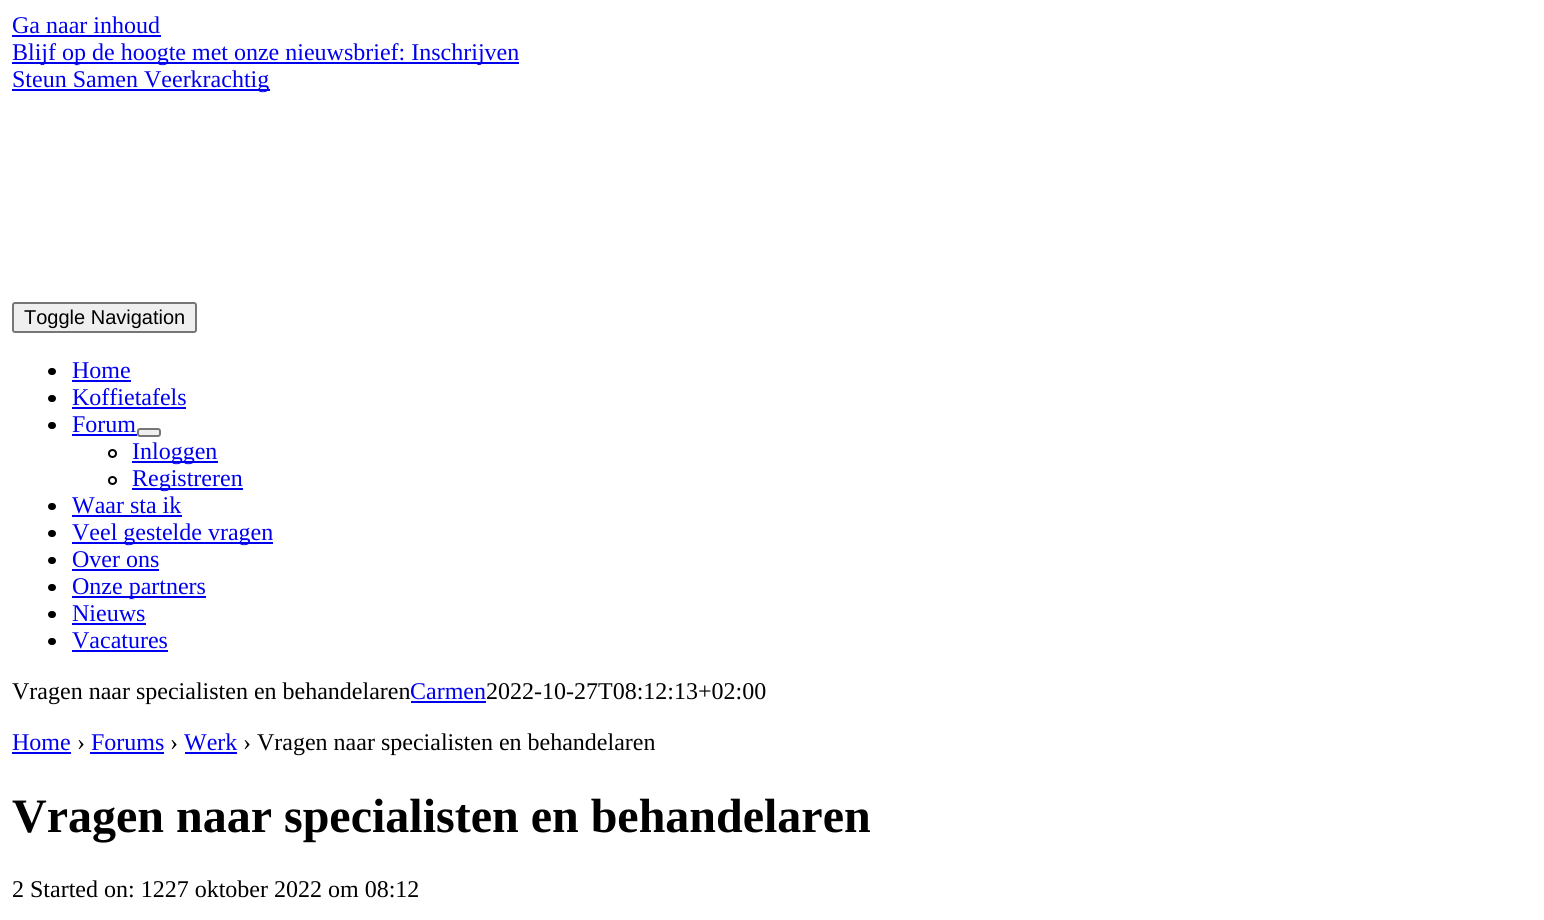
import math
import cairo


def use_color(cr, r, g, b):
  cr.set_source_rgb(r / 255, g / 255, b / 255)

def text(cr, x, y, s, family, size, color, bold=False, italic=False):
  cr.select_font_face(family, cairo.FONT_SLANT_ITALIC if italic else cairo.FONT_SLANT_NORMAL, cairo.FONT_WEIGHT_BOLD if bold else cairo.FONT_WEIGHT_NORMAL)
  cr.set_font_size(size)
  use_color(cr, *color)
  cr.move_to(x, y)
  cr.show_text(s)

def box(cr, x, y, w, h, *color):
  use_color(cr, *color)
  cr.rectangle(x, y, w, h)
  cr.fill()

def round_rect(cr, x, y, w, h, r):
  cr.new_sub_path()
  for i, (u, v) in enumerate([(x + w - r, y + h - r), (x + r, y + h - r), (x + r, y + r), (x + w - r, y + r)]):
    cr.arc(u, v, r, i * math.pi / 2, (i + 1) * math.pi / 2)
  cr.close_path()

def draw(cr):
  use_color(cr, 255, 255, 255)
  cr.paint()
  box(cr, 12, 35, 149, 2, 0, 0, 238)
  box(cr, 12, 62, 507, 2, 0, 0, 238)
  box(cr, 12, 89, 258, 2, 0, 0, 238)
  use_color(cr, 239, 239, 239)
  round_rect(cr, 13, 303, 183, 29, 2)
  cr.fill_preserve()
  use_color(cr, 118, 118, 118)
  cr.stroke()
  use_color(cr, 0, 0, 0)
  round_rect(cr, 48, 368, 8, 7, 3.5)
  cr.fill()
  box(cr, 72, 380, 59, 2, 0, 0, 238)
  use_color(cr, 0, 0, 0)
  round_rect(cr, 48, 395, 8, 7, 3.5)
  cr.fill()
  box(cr, 72, 407, 114, 2, 0, 0, 238)
  use_color(cr, 0, 0, 0)
  round_rect(cr, 48, 422, 8, 7, 3.5)
  cr.fill()
  box(cr, 72, 434, 65, 2, 0, 0, 238)
  use_color(cr, 239, 239, 239)
  round_rect(cr, 138, 429, 22, 7, 2)
  cr.fill_preserve()
  use_color(cr, 118, 118, 118)
  cr.stroke()
  cr.arc(112.5, 453.5, 3.5, 0, 2 * math.pi)
  use_color(cr, 0, 0, 0)
  cr.stroke()
  box(cr, 132, 461, 86, 2, 0, 0, 238)
  cr.arc(112.5, 480.5, 3.5, 0, 2 * math.pi)
  use_color(cr, 0, 0, 0)
  cr.stroke()
  box(cr, 132, 488, 111, 2, 0, 0, 238)
  use_color(cr, 0, 0, 0)
  round_rect(cr, 48, 503, 8, 7, 3.5)
  cr.fill()
  box(cr, 72, 515, 110, 2, 0, 0, 238)
  use_color(cr, 0, 0, 0)
  round_rect(cr, 48, 530, 8, 7, 3.5)
  cr.fill()
  box(cr, 72, 542, 201, 2, 0, 0, 238)
  use_color(cr, 0, 0, 0)
  round_rect(cr, 48, 557, 8, 7, 3.5)
  cr.fill()
  box(cr, 72, 569, 87, 2, 0, 0, 238)
  use_color(cr, 0, 0, 0)
  round_rect(cr, 48, 584, 8, 7, 3.5)
  cr.fill()
  box(cr, 72, 596, 134, 2, 0, 0, 238)
  use_color(cr, 0, 0, 0)
  round_rect(cr, 48, 611, 8, 7, 3.5)
  cr.fill()
  box(cr, 72, 623, 74, 2, 0, 0, 238)
  use_color(cr, 0, 0, 0)
  round_rect(cr, 48, 638, 8, 7, 3.5)
  cr.fill()
  box(cr, 72, 650, 96, 2, 0, 0, 238)
  box(cr, 411, 701, 75, 2, 0, 0, 238)
  box(cr, 12, 752, 59, 2, 0, 0, 238)
  box(cr, 90, 752, 74, 2, 0, 0, 238)
  box(cr, 185, 752, 52, 2, 0, 0, 238)
  text(cr, 12, 33, "Ga naar inhoud", "Liberation Serif", 24, (0, 0, 238))
  text(cr, 12, 60, "Blijf op de hoogte met onze nieuwsbrief: Inschrijven", "Liberation Serif", 24, (0, 0, 238))
  text(cr, 12, 87, "Steun Samen Veerkrachtig", "Liberation Serif", 24, (0, 0, 238))
  text(cr, 24, 324, "Toggle Navigation", "Liberation Sans", 20, (0, 0, 0))
  text(cr, 72, 378, "Home", "Liberation Serif", 24, (0, 0, 238))
  text(cr, 72, 405, "Koffietafels", "Liberation Serif", 24, (0, 0, 238))
  text(cr, 72, 432, "Forum", "Liberation Serif", 24, (0, 0, 238))
  text(cr, 132, 459, "Inloggen", "Liberation Serif", 24, (0, 0, 238))
  text(cr, 132, 486, "Registreren", "Liberation Serif", 24, (0, 0, 238))
  text(cr, 72, 513, "Waar sta ik", "Liberation Serif", 24, (0, 0, 238))
  text(cr, 72, 540, "Veel gestelde vragen", "Liberation Serif", 24, (0, 0, 238))
  text(cr, 72, 567, "Over ons", "Liberation Serif", 24, (0, 0, 238))
  text(cr, 72, 594, "Onze partners", "Liberation Serif", 24, (0, 0, 238))
  text(cr, 72, 621, "Nieuws", "Liberation Serif", 24, (0, 0, 238))
  text(cr, 72, 648, "Vacatures", "Liberation Serif", 24, (0, 0, 238))
  text(cr, 12, 699, "Vragen naar specialisten en behandelaren", "Liberation Serif", 24, (0, 0, 0))
  text(cr, 410, 699, "Carmen", "Liberation Serif", 24, (0, 0, 238))
  text(cr, 486, 699, "2022-10-27T08:12:13+02:00", "Liberation Serif", 24, (0, 0, 0))
  text(cr, 12, 750, "Home", "Liberation Serif", 24, (0, 0, 238))
  text(cr, 77, 750, "›", "Liberation Serif", 24, (0, 0, 0))
  text(cr, 91, 750, "Forums", "Liberation Serif", 24, (0, 0, 238))
  text(cr, 170, 750, "›", "Liberation Serif", 24, (0, 0, 0))
  text(cr, 184, 750, "Werk", "Liberation Serif", 24, (0, 0, 238))
  text(cr, 243, 750, "› Vragen naar specialisten en behandelaren", "Liberation Serif", 24, (0, 0, 0))
  text(cr, 12, 832, "Vragen naar specialisten en behandelaren", "Liberation Serif", 48, (0, 0, 0), bold=True)
  text(cr, 12, 897, "2 Started on: 1227 oktober 2022 om 08:12", "Liberation Serif", 24, (0, 0, 0))


surface = cairo.ImageSurface(cairo.FORMAT_RGB24, 1544, 920)
cr = cairo.Context(surface)
options = cairo.FontOptions()
options.set_hint_metrics(cairo.HINT_METRICS_OFF)
options.set_hint_style(cairo.HINT_STYLE_NONE)
cr.set_font_options(options)
cr.set_miter_limit(4)
draw(cr)
surface.write_to_png("out.png")
